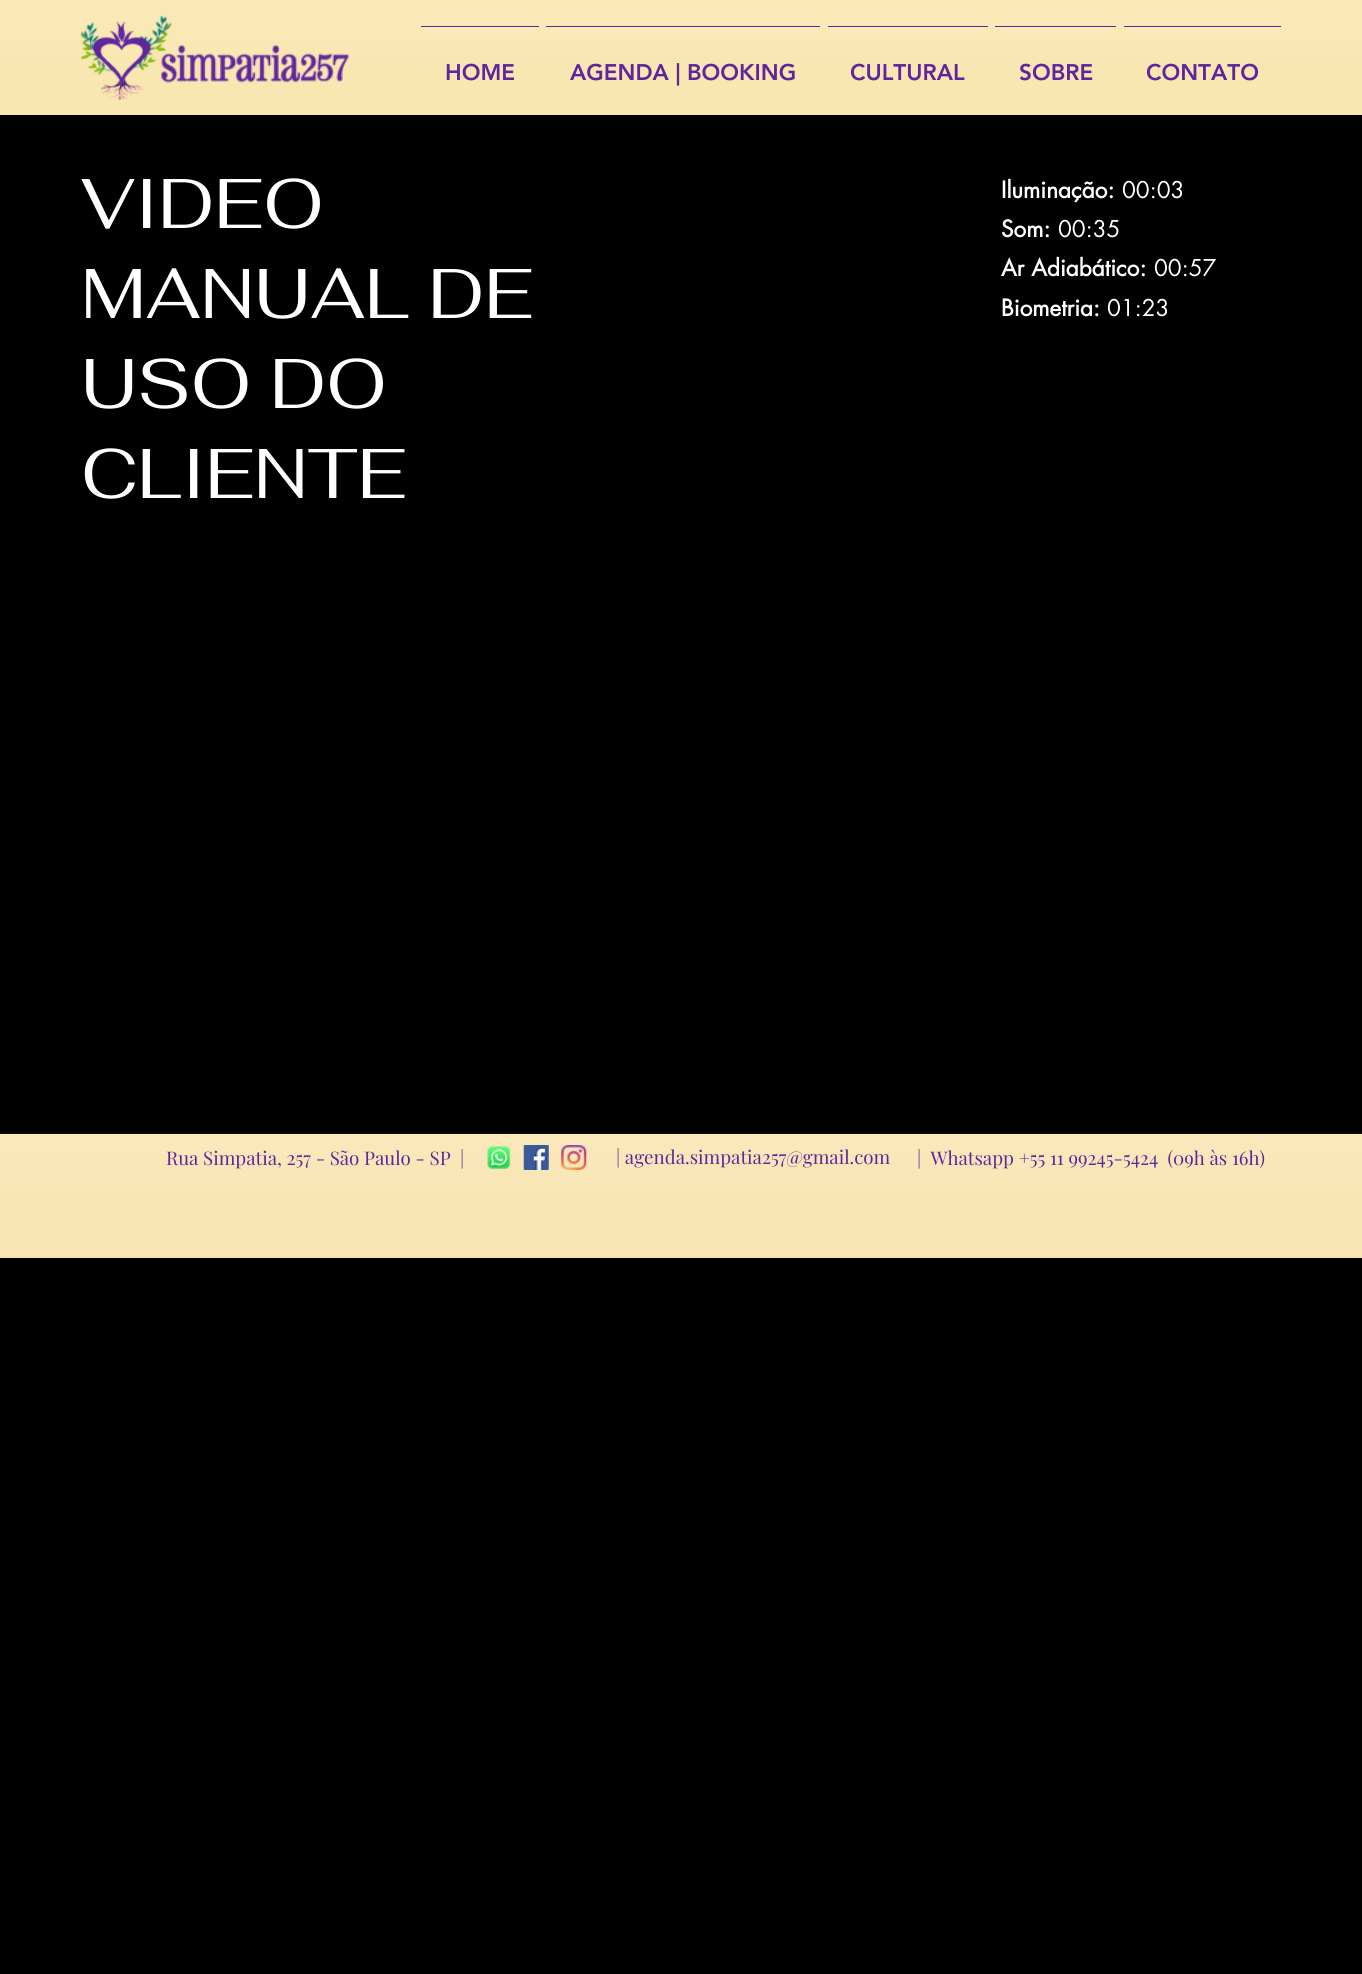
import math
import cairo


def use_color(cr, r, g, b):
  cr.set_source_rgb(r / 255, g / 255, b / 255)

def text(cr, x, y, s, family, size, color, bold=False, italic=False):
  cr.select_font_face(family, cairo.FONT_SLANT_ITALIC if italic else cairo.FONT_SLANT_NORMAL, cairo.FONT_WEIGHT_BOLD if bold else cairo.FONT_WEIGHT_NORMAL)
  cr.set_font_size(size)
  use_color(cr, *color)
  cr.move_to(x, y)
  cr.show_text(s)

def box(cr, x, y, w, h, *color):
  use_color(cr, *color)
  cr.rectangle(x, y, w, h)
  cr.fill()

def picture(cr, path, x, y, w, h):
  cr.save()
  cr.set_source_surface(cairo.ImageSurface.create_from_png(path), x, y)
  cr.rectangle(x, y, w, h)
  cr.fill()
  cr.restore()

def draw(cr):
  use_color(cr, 0, 0, 0)
  cr.paint()
  box(cr, 0, 0, 1362, 115, 248, 225, 159)
  picture(cr, "img_01.png", 0, 0, 1362, 115)
  picture(cr, "img_02.png", 80, 15, 92, 85)
  picture(cr, "img_03.png", 161, 44, 188, 39)
  box(cr, 421, 26, 118, 1, 96, 36, 156)
  box(cr, 546, 26, 274, 1, 96, 36, 156)
  box(cr, 828, 26, 160, 1, 96, 36, 156)
  box(cr, 995, 26, 121, 1, 96, 36, 156)
  box(cr, 1124, 26, 157, 1, 96, 36, 156)
  box(cr, 0, 1134, 1362, 124, 248, 224, 163)
  picture(cr, "img_04.png", 0, 1133, 1362, 125)
  picture(cr, "img_05.png", 487, 1146, 24, 23)
  picture(cr, "img_06.png", 523, 1145, 26, 25)
  picture(cr, "img_07.png", 561, 1145, 26, 25)
  text(cr, 445, 80, "HOME", "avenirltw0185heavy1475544 Black", 22.5, (96, 36, 156))
  text(cr, 570, 80, "AGENDA | BOOKING", "avenirltw0185heavy1475544 Black", 22.5, (96, 36, 156))
  text(cr, 850, 80, "CULTURAL", "avenirltw0185heavy1475544 Black", 22.5, (96, 36, 156))
  text(cr, 1019, 80, "SOBRE", "avenirltw0185heavy1475544 Black", 22.5, (96, 36, 156))
  text(cr, 1146, 80, "CONTATO", "avenirltw0185heavy1475544 Black", 22.5, (96, 36, 156))
  text(cr, 81, 228, "VIDEO", "Fahkwang", 70, (255, 255, 255))
  text(cr, 81, 318, "MANUAL DE", "Fahkwang", 70, (255, 255, 255))
  text(cr, 81, 408, "USO DO", "Fahkwang", 70, (255, 255, 255))
  text(cr, 81, 498, "CLIENTE", "Fahkwang", 70, (255, 255, 255))
  text(cr, 1001, 198, "Iluminação:", "futura", 22.5, (255, 255, 255), bold=True)
  text(cr, 1122, 198, "00:03", "futura", 22.5, (255, 255, 255))
  text(cr, 1001, 237, "Som:", "futura", 22.5, (255, 255, 255), bold=True)
  text(cr, 1058, 237, "00:35", "futura", 22.5, (255, 255, 255))
  text(cr, 1001, 276, "Ar Adiabático:", "futura", 22.5, (255, 255, 255), bold=True)
  text(cr, 1154, 276, "00:57", "futura", 22.5, (255, 255, 255))
  text(cr, 1001, 316, "Biometria:", "futura", 22.5, (255, 255, 255), bold=True)
  text(cr, 1107, 316, "01:23", "futura", 22.5, (255, 255, 255))
  text(cr, 166, 1165, "Rua Simpatia, 257 - São Paulo - SP  |", "Playfair Display", 18.75, (96, 36, 156))
  text(cr, 616, 1164, "| agenda.simpatia257@gmail.com", "Playfair Display", 18.75, (96, 36, 156))
  text(cr, 917, 1165, "|  Whatsapp +55 11 99245-5424  (09h às 16h)", "Playfair Display", 18.75, (96, 36, 156))


surface = cairo.ImageSurface(cairo.FORMAT_RGB24, 1362, 1974)
cr = cairo.Context(surface)
options = cairo.FontOptions()
options.set_hint_metrics(cairo.HINT_METRICS_OFF)
options.set_hint_style(cairo.HINT_STYLE_NONE)
cr.set_font_options(options)
cr.set_miter_limit(4)
draw(cr)
surface.write_to_png("out.png")
